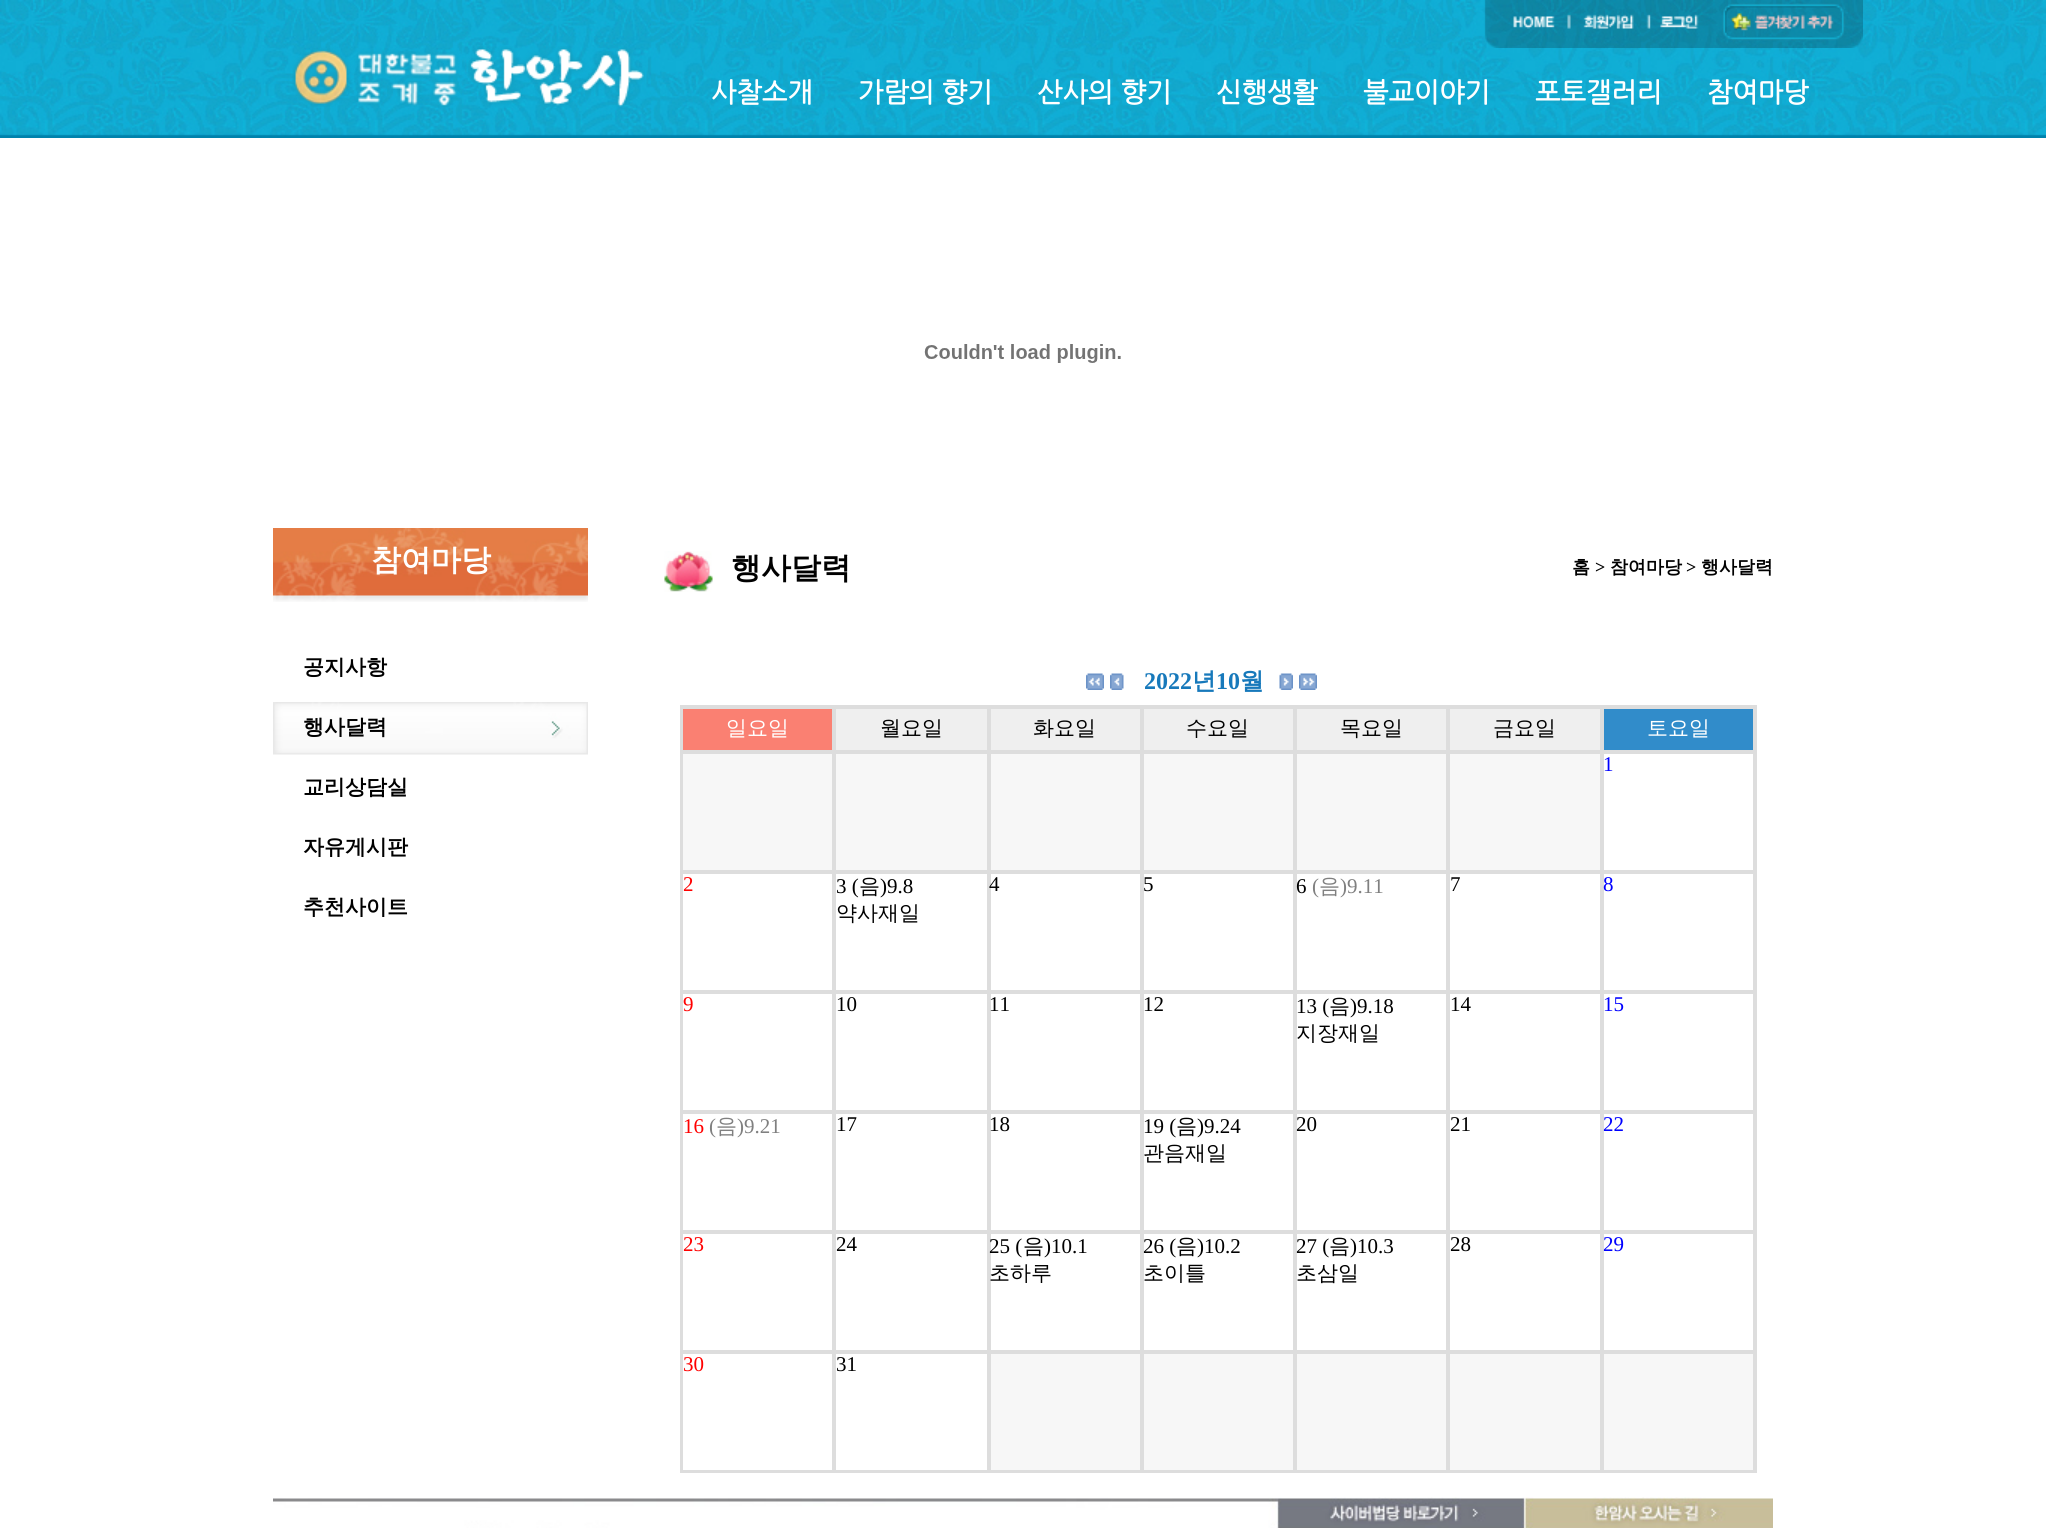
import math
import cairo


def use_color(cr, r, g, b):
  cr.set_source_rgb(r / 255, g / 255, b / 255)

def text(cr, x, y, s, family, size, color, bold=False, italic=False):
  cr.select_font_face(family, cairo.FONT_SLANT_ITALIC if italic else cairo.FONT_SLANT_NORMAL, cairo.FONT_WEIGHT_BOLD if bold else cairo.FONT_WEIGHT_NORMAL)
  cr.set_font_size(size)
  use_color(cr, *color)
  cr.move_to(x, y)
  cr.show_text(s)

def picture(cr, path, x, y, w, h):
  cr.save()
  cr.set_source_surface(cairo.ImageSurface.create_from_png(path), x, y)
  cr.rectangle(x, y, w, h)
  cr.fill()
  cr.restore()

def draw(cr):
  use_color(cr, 255, 255, 255)
  cr.paint()
  picture(cr, "img_01.png", 0, 0, 2046, 138)
  picture(cr, "img_02.png", 292, 46, 353, 61)
  picture(cr, "img_03.png", 1484, 0, 379, 48)
  picture(cr, "img_04.png", 924, 344, 197, 19)
  picture(cr, "img_05.png", 273, 528, 315, 74)
  picture(cr, "img_06.png", 273, 702, 315, 53)
  picture(cr, "img_07.png", 664, 551, 49, 41)
  picture(cr, "img_08.png", 1086, 673, 18, 17)
  picture(cr, "img_09.png", 1110, 673, 14, 17)
  picture(cr, "img_10.png", 1279, 673, 14, 17)
  picture(cr, "img_11.png", 1299, 673, 18, 17)
  cr.rectangle(681, 706, 1075, 766)
  use_color(cr, 221, 221, 221)
  cr.stroke()
  use_color(cr, 250, 128, 114)
  cr.rectangle(682, 708, 151, 43)
  cr.fill_preserve()
  use_color(cr, 221, 221, 221)
  cr.stroke()
  use_color(cr, 239, 239, 239)
  cr.rectangle(835, 708, 153, 43)
  cr.fill_preserve()
  use_color(cr, 221, 221, 221)
  cr.stroke()
  use_color(cr, 239, 239, 239)
  cr.rectangle(990, 708, 151, 43)
  cr.fill_preserve()
  use_color(cr, 221, 221, 221)
  cr.stroke()
  use_color(cr, 239, 239, 239)
  cr.rectangle(1143, 708, 151, 43)
  cr.fill_preserve()
  use_color(cr, 221, 221, 221)
  cr.stroke()
  use_color(cr, 239, 239, 239)
  cr.rectangle(1296, 708, 151, 43)
  cr.fill_preserve()
  use_color(cr, 221, 221, 221)
  cr.stroke()
  use_color(cr, 239, 239, 239)
  cr.rectangle(1449, 708, 152, 43)
  cr.fill_preserve()
  use_color(cr, 221, 221, 221)
  cr.stroke()
  use_color(cr, 49, 140, 202)
  cr.rectangle(1603, 708, 151, 43)
  cr.fill_preserve()
  use_color(cr, 221, 221, 221)
  cr.stroke()
  use_color(cr, 247, 247, 247)
  cr.rectangle(682, 753, 151, 118)
  cr.fill_preserve()
  use_color(cr, 221, 221, 221)
  cr.stroke()
  use_color(cr, 247, 247, 247)
  cr.rectangle(835, 753, 153, 118)
  cr.fill_preserve()
  use_color(cr, 221, 221, 221)
  cr.stroke()
  use_color(cr, 247, 247, 247)
  cr.rectangle(990, 753, 151, 118)
  cr.fill_preserve()
  use_color(cr, 221, 221, 221)
  cr.stroke()
  use_color(cr, 247, 247, 247)
  cr.rectangle(1143, 753, 151, 118)
  cr.fill_preserve()
  use_color(cr, 221, 221, 221)
  cr.stroke()
  use_color(cr, 247, 247, 247)
  cr.rectangle(1296, 753, 151, 118)
  cr.fill_preserve()
  use_color(cr, 221, 221, 221)
  cr.stroke()
  use_color(cr, 247, 247, 247)
  cr.rectangle(1449, 753, 152, 118)
  cr.fill_preserve()
  use_color(cr, 221, 221, 221)
  cr.stroke()
  cr.rectangle(1603, 753, 151, 118)
  cr.stroke()
  cr.rectangle(682, 873, 151, 118)
  cr.stroke()
  cr.rectangle(835, 873, 153, 118)
  cr.stroke()
  cr.rectangle(990, 873, 151, 118)
  cr.stroke()
  cr.rectangle(1143, 873, 151, 118)
  cr.stroke()
  cr.rectangle(1296, 873, 151, 118)
  cr.stroke()
  cr.rectangle(1449, 873, 152, 118)
  cr.stroke()
  cr.rectangle(1603, 873, 151, 118)
  cr.stroke()
  cr.rectangle(682, 993, 151, 118)
  cr.stroke()
  cr.rectangle(835, 993, 153, 118)
  cr.stroke()
  cr.rectangle(990, 993, 151, 118)
  cr.stroke()
  cr.rectangle(1143, 993, 151, 118)
  cr.stroke()
  cr.rectangle(1296, 993, 151, 118)
  cr.stroke()
  cr.rectangle(1449, 993, 152, 118)
  cr.stroke()
  cr.rectangle(1603, 993, 151, 118)
  cr.stroke()
  cr.rectangle(682, 1113, 151, 118)
  cr.stroke()
  cr.rectangle(835, 1113, 153, 118)
  cr.stroke()
  cr.rectangle(990, 1113, 151, 118)
  cr.stroke()
  cr.rectangle(1143, 1113, 151, 118)
  cr.stroke()
  cr.rectangle(1296, 1113, 151, 118)
  cr.stroke()
  cr.rectangle(1449, 1113, 152, 118)
  cr.stroke()
  cr.rectangle(1603, 1113, 151, 118)
  cr.stroke()
  cr.rectangle(682, 1233, 151, 118)
  cr.stroke()
  cr.rectangle(835, 1233, 153, 118)
  cr.stroke()
  cr.rectangle(990, 1233, 151, 118)
  cr.stroke()
  cr.rectangle(1143, 1233, 151, 118)
  cr.stroke()
  cr.rectangle(1296, 1233, 151, 118)
  cr.stroke()
  cr.rectangle(1449, 1233, 152, 118)
  cr.stroke()
  cr.rectangle(1603, 1233, 151, 118)
  cr.stroke()
  cr.rectangle(682, 1353, 151, 118)
  cr.stroke()
  cr.rectangle(835, 1353, 153, 118)
  cr.stroke()
  use_color(cr, 247, 247, 247)
  cr.rectangle(990, 1353, 151, 118)
  cr.fill_preserve()
  use_color(cr, 221, 221, 221)
  cr.stroke()
  use_color(cr, 247, 247, 247)
  cr.rectangle(1143, 1353, 151, 118)
  cr.fill_preserve()
  use_color(cr, 221, 221, 221)
  cr.stroke()
  use_color(cr, 247, 247, 247)
  cr.rectangle(1296, 1353, 151, 118)
  cr.fill_preserve()
  use_color(cr, 221, 221, 221)
  cr.stroke()
  use_color(cr, 247, 247, 247)
  cr.rectangle(1449, 1353, 152, 118)
  cr.fill_preserve()
  use_color(cr, 221, 221, 221)
  cr.stroke()
  use_color(cr, 247, 247, 247)
  cr.rectangle(1603, 1353, 151, 118)
  cr.fill_preserve()
  use_color(cr, 221, 221, 221)
  cr.stroke()
  picture(cr, "img_12.png", 273, 1497, 1500, 31)
  text(cr, 711, 101, "사찰소개", "NanumGothic", 27, (255, 255, 255), bold=True)
  text(cr, 858, 101, "가람의 향기", "NanumGothic", 27, (255, 255, 255), bold=True)
  text(cr, 1037, 101, "산사의 향기", "NanumGothic", 27, (255, 255, 255), bold=True)
  text(cr, 1216, 101, "신행생활", "NanumGothic", 27, (255, 255, 255), bold=True)
  text(cr, 1363, 101, "불교이야기", "NanumGothic", 27, (255, 255, 255), bold=True)
  text(cr, 1535, 101, "포토갤러리", "NanumGothic", 27, (255, 255, 255), bold=True)
  text(cr, 1707, 101, "참여마당", "NanumGothic", 27, (255, 255, 255), bold=True)
  text(cr, 371, 570, "참여마당", "WenQuanYi Zen Hei", 30, (255, 255, 255), bold=True)
  text(cr, 303, 674, "공지사항", "WenQuanYi Zen Hei", 21, (0, 0, 0), bold=True)
  text(cr, 303, 734, "행사달력", "WenQuanYi Zen Hei", 21, (0, 0, 0), bold=True)
  text(cr, 303, 794, "교리상담실", "WenQuanYi Zen Hei", 21, (0, 0, 0), bold=True)
  text(cr, 303, 854, "자유게시판", "WenQuanYi Zen Hei", 21, (0, 0, 0), bold=True)
  text(cr, 303, 914, "추천사이트", "WenQuanYi Zen Hei", 21, (0, 0, 0), bold=True)
  text(cr, 731, 578, "행사달력", "WenQuanYi Zen Hei", 30, (0, 0, 0), bold=True)
  text(cr, 1572, 573, "홈", "WenQuanYi Zen Hei", 18, (0, 0, 0), bold=True)
  text(cr, 1595, 573, ">", "Liberation Serif", 18, (0, 0, 0), bold=True)
  text(cr, 1610, 573, "참여마당", "WenQuanYi Zen Hei", 18, (0, 0, 0), bold=True)
  text(cr, 1686, 573, ">", "Liberation Serif", 18, (0, 0, 0), bold=True)
  text(cr, 1701, 573, "행사달력", "WenQuanYi Zen Hei", 18, (0, 0, 0), bold=True)
  text(cr, 1144, 689, "2022", "Liberation Serif", 24, (23, 121, 187), bold=True)
  text(cr, 1192, 689, "년", "WenQuanYi Zen Hei", 24, (23, 121, 187), bold=True)
  text(cr, 1216, 689, "10", "Liberation Serif", 24, (23, 121, 187), bold=True)
  text(cr, 1240, 689, "월", "WenQuanYi Zen Hei", 24, (23, 121, 187), bold=True)
  text(cr, 726, 735, "일요일", "WenQuanYi Zen Hei Medium", 21, (255, 255, 255))
  text(cr, 880, 735, "월요일", "WenQuanYi Zen Hei Medium", 21, (0, 0, 0))
  text(cr, 1033, 735, "화요일", "WenQuanYi Zen Hei Medium", 21, (0, 0, 0))
  text(cr, 1186, 735, "수요일", "WenQuanYi Zen Hei Medium", 21, (0, 0, 0))
  text(cr, 1340, 735, "목요일", "WenQuanYi Zen Hei Medium", 21, (0, 0, 0))
  text(cr, 1493, 735, "금요일", "WenQuanYi Zen Hei Medium", 21, (0, 0, 0))
  text(cr, 1647, 735, "토요일", "WenQuanYi Zen Hei Medium", 21, (255, 255, 255))
  text(cr, 1603, 771, "1", "Liberation Serif", 21, (0, 0, 255))
  text(cr, 683, 891, "2", "Liberation Serif", 21, (255, 0, 0))
  text(cr, 836, 893, "3 (", "Liberation Serif", 21, (0, 0, 0))
  text(cr, 859, 893, "음", "WenQuanYi Zen Hei Medium", 21, (0, 0, 0))
  text(cr, 880, 893, ")9.8", "Liberation Serif", 21, (0, 0, 0))
  text(cr, 836, 920, "약사재일", "WenQuanYi Zen Hei Medium", 21, (0, 0, 0))
  text(cr, 989, 891, "4", "Liberation Serif", 21, (0, 0, 0))
  text(cr, 1143, 891, "5", "Liberation Serif", 21, (0, 0, 0))
  text(cr, 1296, 893, "6", "Liberation Serif", 21, (0, 0, 0))
  text(cr, 1312, 893, "(", "Liberation Serif", 21, (128, 128, 128))
  text(cr, 1319, 893, "음", "WenQuanYi Zen Hei Medium", 21, (128, 128, 128))
  text(cr, 1340, 893, ")9.11", "Liberation Serif", 21, (128, 128, 128))
  text(cr, 1450, 891, "7", "Liberation Serif", 21, (0, 0, 0))
  text(cr, 1603, 891, "8", "Liberation Serif", 21, (0, 0, 255))
  text(cr, 683, 1011, "9", "Liberation Serif", 21, (255, 0, 0))
  text(cr, 836, 1011, "10", "Liberation Serif", 21, (0, 0, 0))
  text(cr, 989, 1011, "11", "Liberation Serif", 21, (0, 0, 0))
  text(cr, 1143, 1011, "12", "Liberation Serif", 21, (0, 0, 0))
  text(cr, 1296, 1013, "13 (", "Liberation Serif", 21, (0, 0, 0))
  text(cr, 1329, 1013, "음", "WenQuanYi Zen Hei Medium", 21, (0, 0, 0))
  text(cr, 1350, 1013, ")9.18", "Liberation Serif", 21, (0, 0, 0))
  text(cr, 1296, 1040, "지장재일", "WenQuanYi Zen Hei Medium", 21, (0, 0, 0))
  text(cr, 1450, 1011, "14", "Liberation Serif", 21, (0, 0, 0))
  text(cr, 1603, 1011, "15", "Liberation Serif", 21, (0, 0, 255))
  text(cr, 683, 1133, "16", "Liberation Serif", 21, (255, 0, 0))
  text(cr, 709, 1133, "(", "Liberation Serif", 21, (128, 128, 128))
  text(cr, 716, 1133, "음", "WenQuanYi Zen Hei Medium", 21, (128, 128, 128))
  text(cr, 737, 1133, ")9.21", "Liberation Serif", 21, (128, 128, 128))
  text(cr, 836, 1131, "17", "Liberation Serif", 21, (0, 0, 0))
  text(cr, 989, 1131, "18", "Liberation Serif", 21, (0, 0, 0))
  text(cr, 1143, 1133, "19 (", "Liberation Serif", 21, (0, 0, 0))
  text(cr, 1176, 1133, "음", "WenQuanYi Zen Hei Medium", 21, (0, 0, 0))
  text(cr, 1197, 1133, ")9.24", "Liberation Serif", 21, (0, 0, 0))
  text(cr, 1143, 1160, "관음재일", "WenQuanYi Zen Hei Medium", 21, (0, 0, 0))
  text(cr, 1296, 1131, "20", "Liberation Serif", 21, (0, 0, 0))
  text(cr, 1450, 1131, "21", "Liberation Serif", 21, (0, 0, 0))
  text(cr, 1603, 1131, "22", "Liberation Serif", 21, (0, 0, 255))
  text(cr, 683, 1251, "23", "Liberation Serif", 21, (255, 0, 0))
  text(cr, 836, 1251, "24", "Liberation Serif", 21, (0, 0, 0))
  text(cr, 989, 1253, "25 (", "Liberation Serif", 21, (0, 0, 0))
  text(cr, 1023, 1253, "음", "WenQuanYi Zen Hei Medium", 21, (0, 0, 0))
  text(cr, 1044, 1253, ")10.1", "Liberation Serif", 21, (0, 0, 0))
  text(cr, 989, 1280, "초하루", "WenQuanYi Zen Hei Medium", 21, (0, 0, 0))
  text(cr, 1143, 1253, "26 (", "Liberation Serif", 21, (0, 0, 0))
  text(cr, 1176, 1253, "음", "WenQuanYi Zen Hei Medium", 21, (0, 0, 0))
  text(cr, 1197, 1253, ")10.2", "Liberation Serif", 21, (0, 0, 0))
  text(cr, 1143, 1280, "초이틀", "WenQuanYi Zen Hei Medium", 21, (0, 0, 0))
  text(cr, 1296, 1253, "27 (", "Liberation Serif", 21, (0, 0, 0))
  text(cr, 1329, 1253, "음", "WenQuanYi Zen Hei Medium", 21, (0, 0, 0))
  text(cr, 1350, 1253, ")10.3", "Liberation Serif", 21, (0, 0, 0))
  text(cr, 1296, 1280, "초삼일", "WenQuanYi Zen Hei Medium", 21, (0, 0, 0))
  text(cr, 1450, 1251, "28", "Liberation Serif", 21, (0, 0, 0))
  text(cr, 1603, 1251, "29", "Liberation Serif", 21, (0, 0, 255))
  text(cr, 683, 1371, "30", "Liberation Serif", 21, (255, 0, 0))
  text(cr, 836, 1371, "31", "Liberation Serif", 21, (0, 0, 0))


surface = cairo.ImageSurface(cairo.FORMAT_RGB24, 2046, 1528)
cr = cairo.Context(surface)
options = cairo.FontOptions()
options.set_hint_metrics(cairo.HINT_METRICS_OFF)
options.set_hint_style(cairo.HINT_STYLE_NONE)
cr.set_font_options(options)
cr.set_miter_limit(4)
draw(cr)
surface.write_to_png("out.png")
